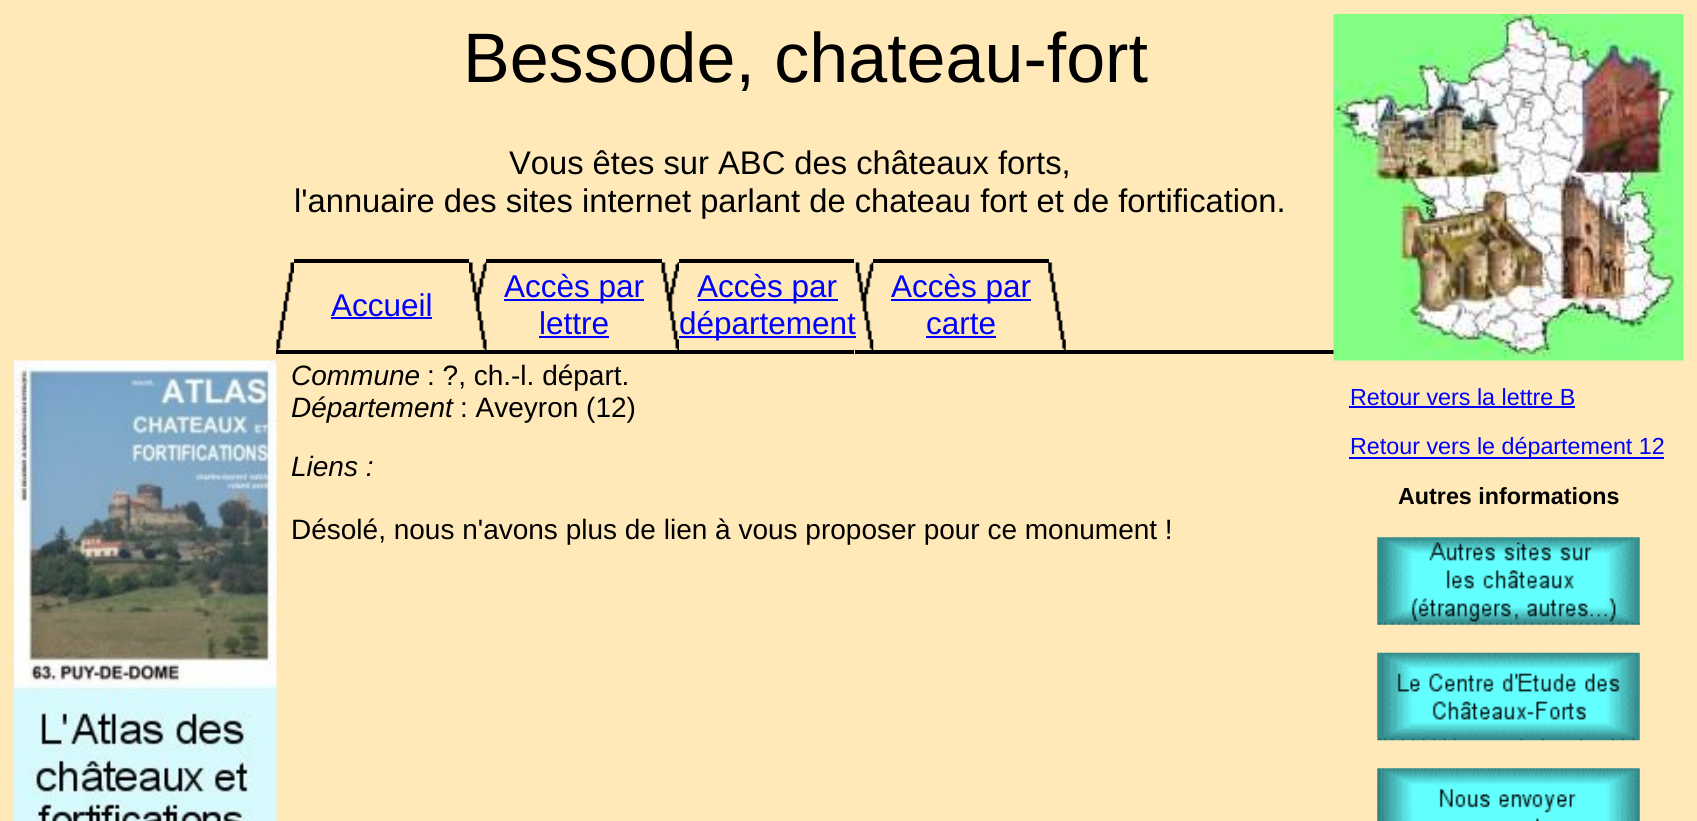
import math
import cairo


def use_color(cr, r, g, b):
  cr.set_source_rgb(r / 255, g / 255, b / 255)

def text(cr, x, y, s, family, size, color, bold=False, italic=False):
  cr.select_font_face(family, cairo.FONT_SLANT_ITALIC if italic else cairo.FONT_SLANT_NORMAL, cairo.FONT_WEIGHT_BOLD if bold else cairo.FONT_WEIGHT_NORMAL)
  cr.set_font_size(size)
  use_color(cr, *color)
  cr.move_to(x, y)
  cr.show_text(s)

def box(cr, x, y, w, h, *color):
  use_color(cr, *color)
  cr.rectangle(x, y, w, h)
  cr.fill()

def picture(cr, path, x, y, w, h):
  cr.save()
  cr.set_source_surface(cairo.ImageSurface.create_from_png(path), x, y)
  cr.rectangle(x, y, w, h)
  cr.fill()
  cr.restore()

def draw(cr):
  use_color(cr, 255, 233, 185)
  cr.paint()
  box(cr, 1066, 350, 268, 4, 0, 0, 0)
  picture(cr, "img_01.png", 1333, 14, 351, 347)
  box(cr, 294, 259, 175, 4, 0, 0, 0)
  box(cr, 486, 259, 176, 4, 0, 0, 0)
  box(cr, 679, 259, 175, 4, 0, 0, 0)
  box(cr, 873, 259, 176, 4, 0, 0, 0)
  picture(cr, "img_02.png", 276, 262, 18, 88)
  box(cr, 331, 317, 101, 2, 0, 0, 255)
  picture(cr, "img_03.png", 469, 262, 18, 88)
  box(cr, 504, 299, 140, 2, 0, 0, 255)
  box(cr, 539, 336, 70, 2, 0, 0, 255)
  picture(cr, "img_04.png", 661, 262, 18, 88)
  box(cr, 698, 299, 140, 2, 0, 0, 255)
  box(cr, 679, 336, 177, 2, 0, 0, 255)
  box(cr, 891, 299, 140, 2, 0, 0, 255)
  box(cr, 926, 336, 70, 2, 0, 0, 255)
  picture(cr, "img_06.png", 1048, 262, 18, 88)
  box(cr, 276, 350, 578, 4, 0, 0, 0)
  box(cr, 855, 350, 211, 4, 0, 0, 0)
  picture(cr, "img_07.png", 14, 360, 263, 461)
  box(cr, 1349, 406, 226, 2, 0, 0, 255)
  box(cr, 1349, 457, 315, 2, 0, 0, 255)
  picture(cr, "img_08.png", 1377, 537, 263, 88)
  picture(cr, "img_09.png", 1377, 652, 263, 89)
  picture(cr, "img_10.png", 1377, 768, 263, 53)
  text(cr, 463, 82, "Bessode, chateau-fort", "Liberation Sans", 70, (0, 0, 0))
  text(cr, 509, 174, "Vous êtes sur ABC des châteaux forts,", "Liberation Sans", 32.7, (0, 0, 0))
  text(cr, 294, 212, "l'annuaire des sites internet parlant de chateau fort et de fortification.", "Liberation Sans", 32.7, (0, 0, 0))
  text(cr, 331, 316, "Accueil", "Liberation Sans", 31.5, (0, 0, 255))
  text(cr, 504, 297, "Accès par", "Liberation Sans", 31.5, (0, 0, 255))
  text(cr, 539, 334, "lettre", "Liberation Sans", 31.5, (0, 0, 255))
  text(cr, 697, 297, "Accès par", "Liberation Sans", 31.5, (0, 0, 255))
  text(cr, 679, 334, "département", "Liberation Sans", 31.5, (0, 0, 255))
  picture(cr, "img_05.png", 855, 262, 19, 88)
  text(cr, 891, 297, "Accès par", "Liberation Sans", 31.5, (0, 0, 255))
  text(cr, 926, 334, "carte", "Liberation Sans", 31.5, (0, 0, 255))
  text(cr, 291, 385, "Commune", "Liberation Sans", 28, (0, 0, 0), italic=True)
  text(cr, 427, 385, ": ?, ch.-l. départ.", "Liberation Sans", 28, (0, 0, 0))
  text(cr, 291, 417, "Département", "Liberation Sans", 28, (0, 0, 0), italic=True)
  text(cr, 460, 417, ": Aveyron (12)", "Liberation Sans", 28, (0, 0, 0))
  text(cr, 291, 476, "Liens :", "Liberation Sans", 28, (0, 0, 0), italic=True)
  text(cr, 291, 539, "Désolé, nous n'avons plus de lien à vous proposer pour ce monument !", "Liberation Sans", 28, (0, 0, 0))
  text(cr, 1350, 405, "Retour vers la lettre B", "Liberation Sans", 23.3, (0, 0, 255))
  text(cr, 1350, 454, "Retour vers le département 12", "Liberation Sans", 23.3, (0, 0, 255))
  text(cr, 1398, 504, "Autres informations", "Liberation Sans", 23.3, (0, 0, 0), bold=True)


surface = cairo.ImageSurface(cairo.FORMAT_RGB24, 1697, 821)
cr = cairo.Context(surface)
options = cairo.FontOptions()
options.set_hint_metrics(cairo.HINT_METRICS_OFF)
options.set_hint_style(cairo.HINT_STYLE_NONE)
cr.set_font_options(options)
cr.set_miter_limit(4)
draw(cr)
surface.write_to_png("out.png")
